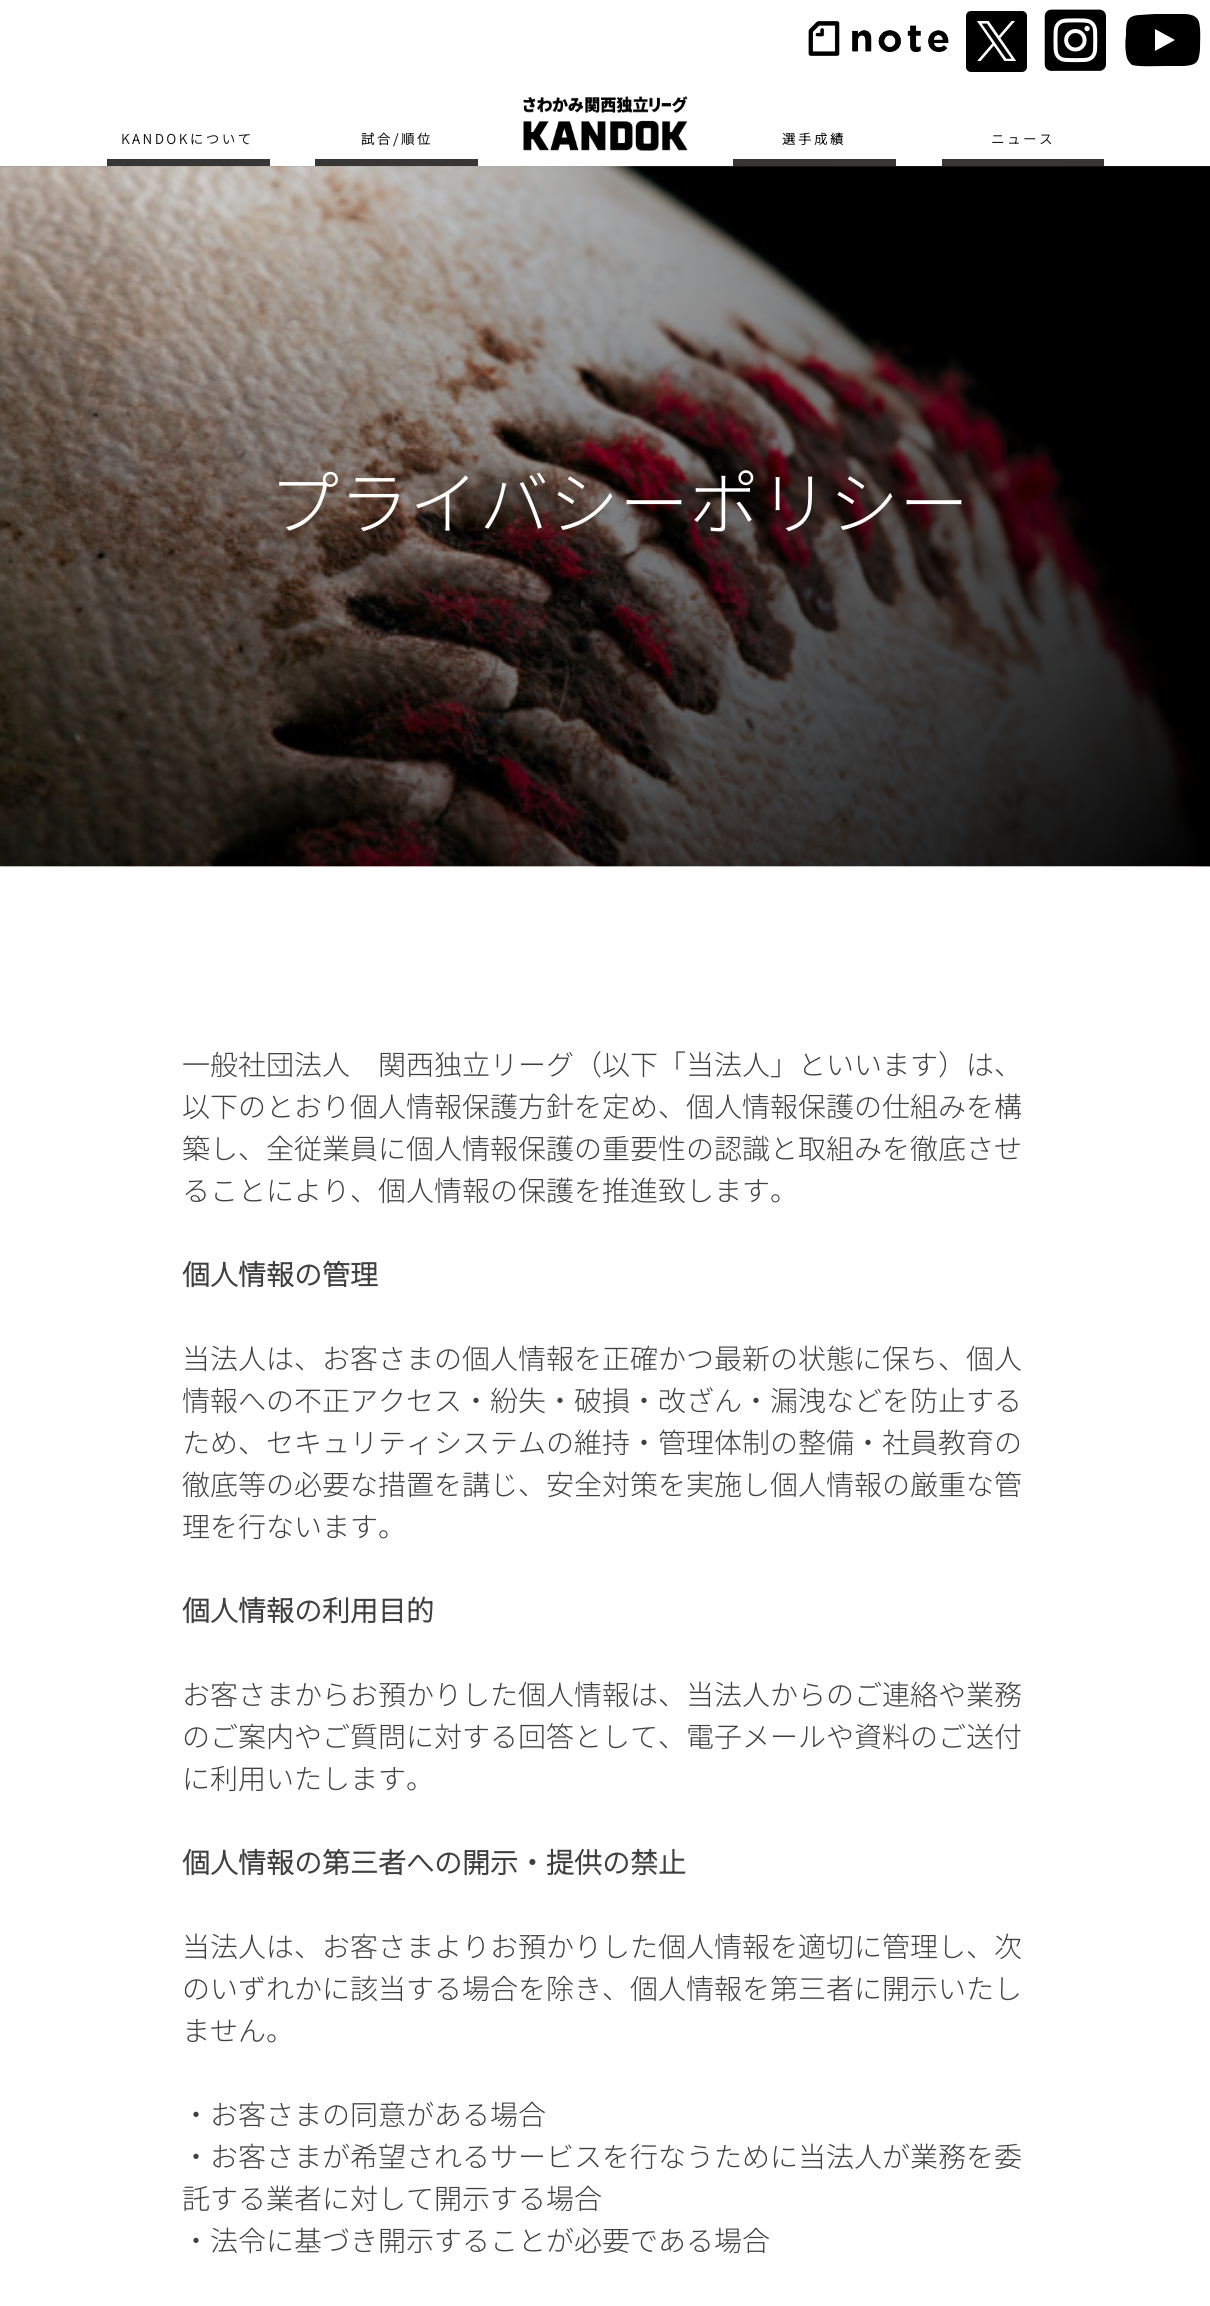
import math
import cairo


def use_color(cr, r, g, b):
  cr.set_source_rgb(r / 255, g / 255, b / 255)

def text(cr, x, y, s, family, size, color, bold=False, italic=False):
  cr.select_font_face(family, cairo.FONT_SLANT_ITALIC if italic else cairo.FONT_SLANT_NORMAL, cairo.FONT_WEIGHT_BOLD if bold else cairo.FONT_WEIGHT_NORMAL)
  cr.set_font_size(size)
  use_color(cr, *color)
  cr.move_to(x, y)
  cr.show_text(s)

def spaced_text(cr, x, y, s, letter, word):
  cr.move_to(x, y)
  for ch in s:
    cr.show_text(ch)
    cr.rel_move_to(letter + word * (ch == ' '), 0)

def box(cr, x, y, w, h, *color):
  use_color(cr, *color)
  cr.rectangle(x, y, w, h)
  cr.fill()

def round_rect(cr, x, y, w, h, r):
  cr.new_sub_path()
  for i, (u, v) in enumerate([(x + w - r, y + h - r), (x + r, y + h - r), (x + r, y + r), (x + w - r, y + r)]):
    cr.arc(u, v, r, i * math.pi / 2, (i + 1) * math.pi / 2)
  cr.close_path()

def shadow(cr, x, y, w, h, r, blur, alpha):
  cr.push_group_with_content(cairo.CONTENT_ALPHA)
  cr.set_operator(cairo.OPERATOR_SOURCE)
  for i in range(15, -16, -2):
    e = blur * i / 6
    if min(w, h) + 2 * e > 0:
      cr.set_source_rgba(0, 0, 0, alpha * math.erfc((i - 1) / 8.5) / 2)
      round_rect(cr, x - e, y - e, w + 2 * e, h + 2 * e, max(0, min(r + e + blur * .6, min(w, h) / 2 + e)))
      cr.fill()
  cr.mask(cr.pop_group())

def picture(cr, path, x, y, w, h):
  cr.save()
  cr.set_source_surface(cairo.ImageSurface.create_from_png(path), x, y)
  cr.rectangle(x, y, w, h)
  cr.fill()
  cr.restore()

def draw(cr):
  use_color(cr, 255, 255, 255)
  cr.paint()
  picture(cr, "img_01.png", 808, 21, 141, 35)
  use_color(cr, 0, 0, 0)
  round_rect(cr, 966, 11, 61, 61, 5)
  cr.fill()
  picture(cr, "img_02.png", 977, 21, 39, 40)
  picture(cr, "img_03.png", 1044, 9, 62, 62)
  cr.new_path()
  cr.move_to(1199, 22)
  cr.curve_to(1201, 31, 1200, 40, 1200, 49)
  cr.curve_to(1199, 62, 1197, 65, 1184, 66)
  cr.line_to(1166, 66)
  cr.curve_to(1158, 66, 1140, 67, 1132, 65)
  cr.curve_to(1130, 63, 1128, 61, 1127, 58)
  cr.curve_to(1125, 51, 1125, 42, 1126, 35)
  cr.curve_to(1126, 23, 1126, 16, 1139, 15)
  cr.line_to(1155, 14)
  cr.line_to(1178, 14)
  cr.curve_to(1185, 14, 1196, 13, 1199, 22)
  cr.close_path()
  cr.move_to(1155, 51)
  cr.line_to(1175, 40)
  cr.line_to(1155, 29)
  cr.close_path()
  cr.fill()
  cr.save()
  cr.rectangle(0, 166, 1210, 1)
  cr.clip()
  use_color(cr, 0, 0, 0)
  shadow(cr, 0, 86, 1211, 82, 0, 1, 0.5)
  cr.restore()
  box(cr, 107, 159, 163, 7, 56, 54, 52)
  box(cr, 315, 159, 163, 7, 56, 54, 52)
  picture(cr, "img_04.png", 523, 96, 165, 55)
  box(cr, 733, 159, 163, 7, 56, 54, 52)
  box(cr, 942, 159, 162, 7, 56, 54, 52)
  picture(cr, "img_05.png", 0, 166, 1210, 701)
  cr.select_font_face("Noto Sans JP", cairo.FONT_SLANT_NORMAL, cairo.FONT_WEIGHT_BOLD)
  cr.set_font_size(13.25)
  use_color(cr, 23, 23, 23)
  spaced_text(cr, 121, 144, "KANDOKについて", 2.75, 0)
  spaced_text(cr, 361, 144, "試合/順位", 2.75, 0)
  spaced_text(cr, 782, 144, "選手成績", 2.75, 0)
  spaced_text(cr, 991, 144, "ニュース", 2.75, 0)
  text(cr, 269, 529, "プライバシーポリシー", "Noto Sans JP Thin", 70, (255, 255, 255))
  text(cr, 182, 1075, "一般社団法人　関西独立リーグ（以下「当法人」といいます）は、", "Noto Sans JP Thin", 28, (64, 64, 64))
  text(cr, 182, 1117, "以下のとおり個人情報保護方針を定め、個人情報保護の仕組みを構", "Noto Sans JP Thin", 28, (64, 64, 64))
  text(cr, 182, 1159, "築し、全従業員に個人情報保護の重要性の認識と取組みを徹底させ", "Noto Sans JP Thin", 28, (64, 64, 64))
  text(cr, 182, 1201, "ることにより、個人情報の保護を推進致します。", "Noto Sans JP Thin", 28, (64, 64, 64))
  text(cr, 182, 1285, "個人情報の管理", "Noto Sans JP", 28, (64, 64, 64), bold=True)
  text(cr, 182, 1369, "当法人は、お客さまの個人情報を正確かつ最新の状態に保ち、個人", "Noto Sans JP Thin", 28, (64, 64, 64))
  text(cr, 182, 1411, "情報への不正アクセス・紛失・破損・改ざん・漏洩などを防止する", "Noto Sans JP Thin", 28, (64, 64, 64))
  text(cr, 182, 1453, "ため、セキュリティシステムの維持・管理体制の整備・社員教育の", "Noto Sans JP Thin", 28, (64, 64, 64))
  text(cr, 182, 1495, "徹底等の必要な措置を講じ、安全対策を実施し個人情報の厳重な管", "Noto Sans JP Thin", 28, (64, 64, 64))
  text(cr, 182, 1537, "理を行ないます。", "Noto Sans JP Thin", 28, (64, 64, 64))
  text(cr, 182, 1621, "個人情報の利用目的", "Noto Sans JP", 28, (64, 64, 64), bold=True)
  text(cr, 182, 1705, "お客さまからお預かりした個人情報は、当法人からのご連絡や業務", "Noto Sans JP Thin", 28, (64, 64, 64))
  text(cr, 182, 1747, "のご案内やご質問に対する回答として、電子メールや資料のご送付", "Noto Sans JP Thin", 28, (64, 64, 64))
  text(cr, 182, 1789, "に利用いたします。", "Noto Sans JP Thin", 28, (64, 64, 64))
  text(cr, 182, 1873, "個人情報の第三者への開示・提供の禁止", "Noto Sans JP", 28, (64, 64, 64), bold=True)
  text(cr, 182, 1957, "当法人は、お客さまよりお預かりした個人情報を適切に管理し、次", "Noto Sans JP Thin", 28, (64, 64, 64))
  text(cr, 182, 1999, "のいずれかに該当する場合を除き、個人情報を第三者に開示いたし", "Noto Sans JP Thin", 28, (64, 64, 64))
  text(cr, 182, 2041, "ません。", "Noto Sans JP Thin", 28, (64, 64, 64))
  text(cr, 182, 2125, "・お客さまの同意がある場合", "Noto Sans JP Thin", 28, (64, 64, 64))
  text(cr, 182, 2167, "・お客さまが希望されるサービスを行なうために当法人が業務を委", "Noto Sans JP Thin", 28, (64, 64, 64))
  text(cr, 182, 2209, "託する業者に対して開示する場合", "Noto Sans JP Thin", 28, (64, 64, 64))
  text(cr, 182, 2251, "・法令に基づき開示することが必要である場合", "Noto Sans JP Thin", 28, (64, 64, 64))


surface = cairo.ImageSurface(cairo.FORMAT_RGB24, 1210, 2306)
cr = cairo.Context(surface)
options = cairo.FontOptions()
options.set_hint_metrics(cairo.HINT_METRICS_OFF)
options.set_hint_style(cairo.HINT_STYLE_NONE)
cr.set_font_options(options)
cr.set_miter_limit(4)
draw(cr)
surface.write_to_png("out.png")
